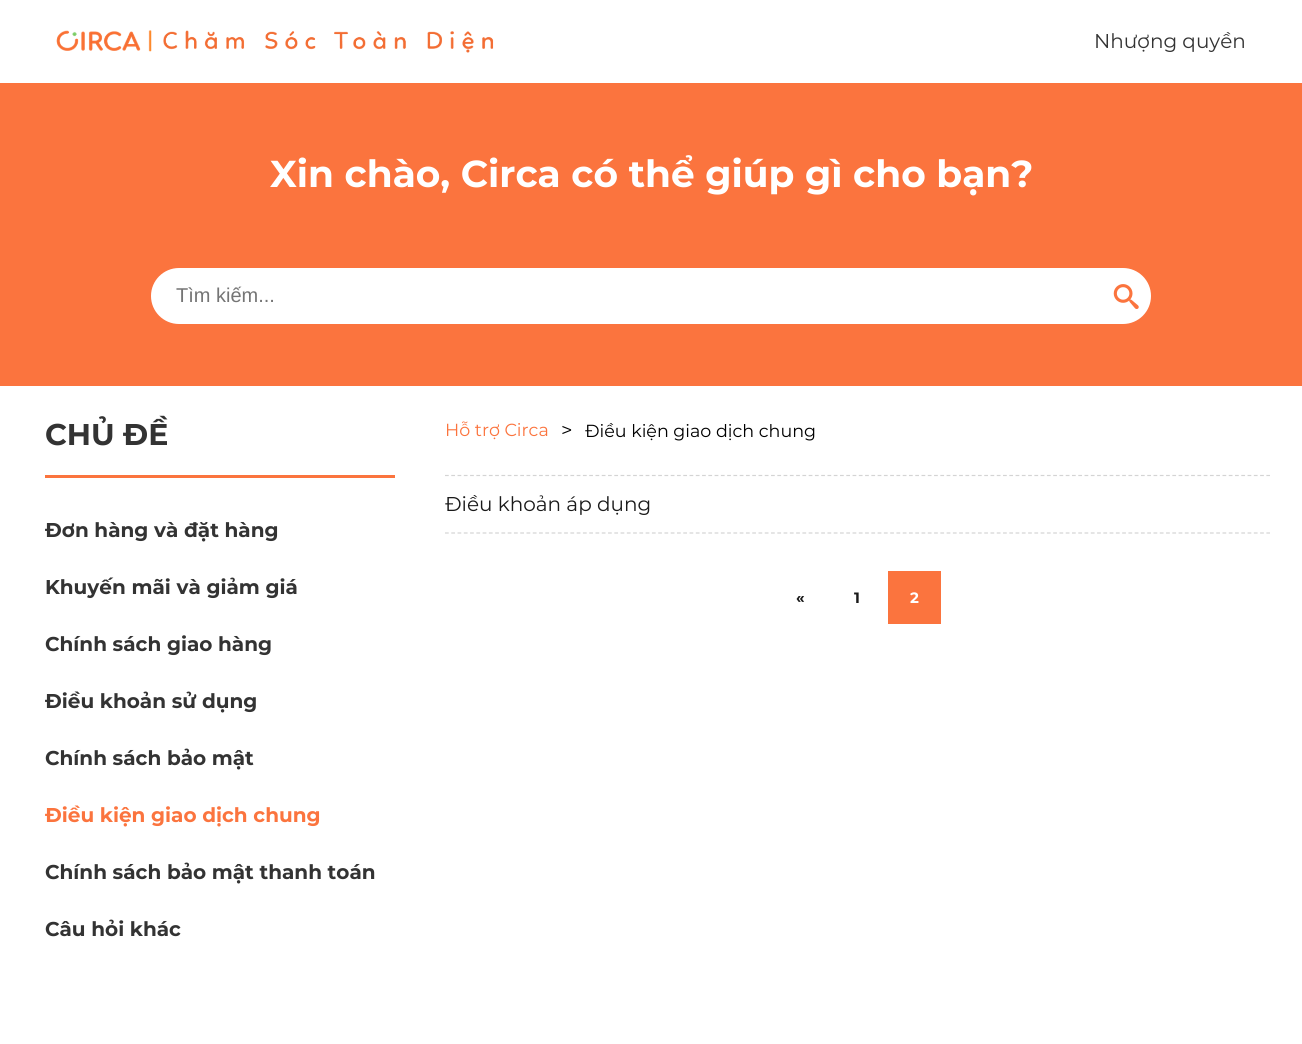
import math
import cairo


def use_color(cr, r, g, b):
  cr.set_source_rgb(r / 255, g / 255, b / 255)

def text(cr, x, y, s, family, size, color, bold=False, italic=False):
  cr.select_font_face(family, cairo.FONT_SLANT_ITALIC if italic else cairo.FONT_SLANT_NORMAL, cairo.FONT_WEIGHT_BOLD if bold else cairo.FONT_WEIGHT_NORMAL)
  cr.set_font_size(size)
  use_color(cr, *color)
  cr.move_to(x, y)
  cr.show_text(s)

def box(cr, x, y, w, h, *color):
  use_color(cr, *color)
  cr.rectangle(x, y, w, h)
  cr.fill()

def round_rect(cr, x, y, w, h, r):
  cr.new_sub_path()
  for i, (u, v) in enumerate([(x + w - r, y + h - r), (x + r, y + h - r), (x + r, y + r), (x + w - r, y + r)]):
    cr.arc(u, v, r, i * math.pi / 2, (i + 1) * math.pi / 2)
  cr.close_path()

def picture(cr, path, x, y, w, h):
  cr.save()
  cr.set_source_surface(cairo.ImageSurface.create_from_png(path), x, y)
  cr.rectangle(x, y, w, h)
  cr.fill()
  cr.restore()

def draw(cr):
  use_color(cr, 255, 255, 255)
  cr.paint()
  picture(cr, "img_01.png", 56, 30, 438, 23)
  box(cr, 0, 83, 1302, 303, 251, 116, 62)
  use_color(cr, 255, 255, 255)
  round_rect(cr, 151, 268, 1000, 56, 28)
  cr.fill()
  picture(cr, "img_02.png", 1113, 284, 26, 25)
  box(cr, 45, 475, 350, 3, 251, 116, 62)
  cr.new_path()
  cr.move_to(445, 475.5)
  cr.line_to(1270, 475.5)
  use_color(cr, 212, 212, 212)
  cr.set_line_width(1.2)
  cr.set_dash([3.75, 2.52])
  cr.stroke()
  cr.new_path()
  cr.move_to(445, 533)
  cr.line_to(1270, 533)
  cr.stroke()
  box(cr, 888, 571, 53, 53, 251, 116, 62)
  text(cr, 1094, 48, "Nhượng quyền", "Montserrat", 20, (51, 51, 51))
  text(cr, 270, 187, "Xin chào, Circa có thể giúp gì cho bạn?", "Montserrat", 37.5, (255, 255, 255), bold=True)
  text(cr, 176, 302, "Tìm kiếm...", "Liberation Sans", 20, (117, 117, 117))
  text(cr, 45, 445, "CHỦ ĐỀ", "Montserrat", 30, (51, 51, 51), bold=True)
  text(cr, 45, 537, "Đơn hàng và đặt hàng", "Montserrat", 20, (51, 51, 51), bold=True)
  text(cr, 45, 594, "Khuyến mãi và giảm giá", "Montserrat", 20, (51, 51, 51), bold=True)
  text(cr, 45, 651, "Chính sách giao hàng", "Montserrat", 20, (51, 51, 51), bold=True)
  text(cr, 45, 708, "Điều khoản sử dụng", "Montserrat", 20, (51, 51, 51), bold=True)
  text(cr, 45, 765, "Chính sách bảo mật", "Montserrat", 20, (51, 51, 51), bold=True)
  text(cr, 45, 822, "Điều kiện giao dịch chung", "Montserrat", 20, (251, 116, 62), bold=True)
  text(cr, 45, 879, "Chính sách bảo mật thanh toán", "Montserrat", 20, (51, 51, 51), bold=True)
  text(cr, 45, 936, "Câu hỏi khác", "Montserrat", 20, (51, 51, 51), bold=True)
  text(cr, 445, 436, "Hỗ trợ Circa", "Montserrat", 17.5, (251, 116, 62))
  text(cr, 561, 437, ">", "Montserrat", 20, (0, 0, 0))
  text(cr, 585, 437, "Điều kiện giao dịch chung", "Montserrat", 17.5, (0, 0, 0))
  text(cr, 445, 511, "Điều khoản áp dụng", "Montserrat", 20, (26, 26, 26))
  text(cr, 796, 603, "«", "Montserrat", 15, (26, 26, 26), bold=True)
  text(cr, 854, 603, "1", "Montserrat", 15, (26, 26, 26), bold=True)
  text(cr, 910, 603, "2", "Montserrat", 15, (255, 255, 255), bold=True)


surface = cairo.ImageSurface(cairo.FORMAT_RGB24, 1302, 1044)
cr = cairo.Context(surface)
options = cairo.FontOptions()
options.set_hint_metrics(cairo.HINT_METRICS_OFF)
options.set_hint_style(cairo.HINT_STYLE_NONE)
cr.set_font_options(options)
cr.set_miter_limit(4)
draw(cr)
surface.write_to_png("out.png")
